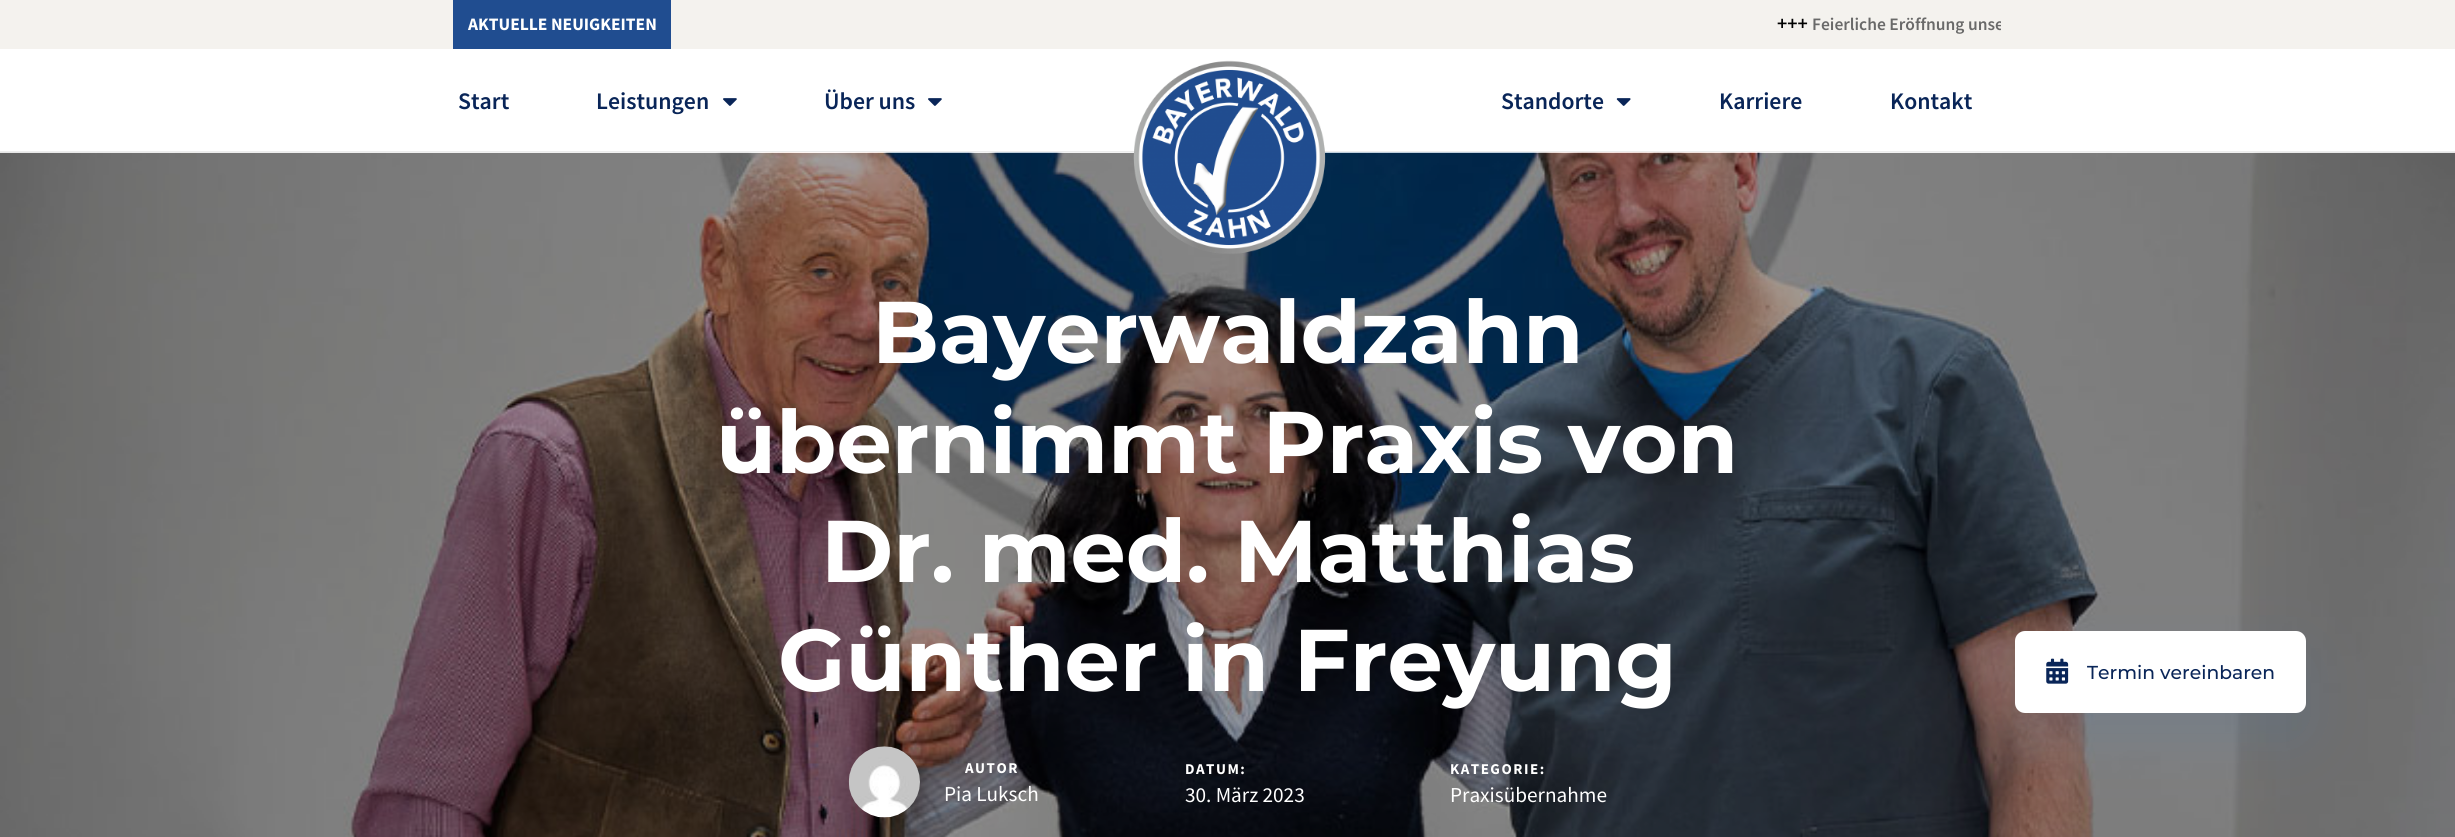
import math
import cairo


def use_color(cr, r, g, b):
  cr.set_source_rgb(r / 255, g / 255, b / 255)

def text(cr, x, y, s, family, size, color, bold=False, italic=False):
  cr.select_font_face(family, cairo.FONT_SLANT_ITALIC if italic else cairo.FONT_SLANT_NORMAL, cairo.FONT_WEIGHT_BOLD if bold else cairo.FONT_WEIGHT_NORMAL)
  cr.set_font_size(size)
  use_color(cr, *color)
  cr.move_to(x, y)
  cr.show_text(s)

def spaced_text(cr, x, y, s, letter, word):
  cr.move_to(x, y)
  for ch in s:
    cr.show_text(ch)
    cr.rel_move_to(letter + word * (ch == ' '), 0)

def box(cr, x, y, w, h, *color):
  use_color(cr, *color)
  cr.rectangle(x, y, w, h)
  cr.fill()

def round_rect(cr, x, y, w, h, r):
  cr.new_sub_path()
  for i, (u, v) in enumerate([(x + w - r, y + h - r), (x + r, y + h - r), (x + r, y + r), (x + w - r, y + r)]):
    cr.arc(u, v, r, i * math.pi / 2, (i + 1) * math.pi / 2)
  cr.close_path()

def shadow(cr, x, y, w, h, r, blur, alpha):
  cr.push_group_with_content(cairo.CONTENT_ALPHA)
  cr.set_operator(cairo.OPERATOR_SOURCE)
  for i in range(15, -16, -2):
    e = blur * i / 6
    if min(w, h) + 2 * e > 0:
      cr.set_source_rgba(0, 0, 0, alpha * math.erfc((i - 1) / 8.5) / 2)
      round_rect(cr, x - e, y - e, w + 2 * e, h + 2 * e, max(0, min(r + e + blur * .6, min(w, h) / 2 + e)))
      cr.fill()
  cr.mask(cr.pop_group())

def picture(cr, path, x, y, w, h):
  cr.save()
  cr.set_source_surface(cairo.ImageSurface.create_from_png(path), x, y)
  cr.rectangle(x, y, w, h)
  cr.fill()
  cr.restore()

def draw(cr):
  use_color(cr, 255, 255, 255)
  cr.paint()
  box(cr, 0, 0, 2455, 49, 244, 242, 238)
  box(cr, 453, 0, 218, 49, 32, 77, 144)
  box(cr, 0, 151, 2455, 1, 237, 237, 237)
  picture(cr, "img_01.png", 723, 98, 14, 8)
  picture(cr, "img_01.png", 928, 98, 14, 8)
  picture(cr, "img_05.png", 0, 152, 2455, 685)
  picture(cr, "img_02.png", 1133, 60, 193, 194)
  picture(cr, "img_03.png", 1616, 98, 15, 8)
  use_color(cr, 72, 119, 175)
  shadow(cr, 2015, 656, 291, 82, 10, 27.5, 0.18)
  use_color(cr, 255, 255, 255)
  round_rect(cr, 2015, 631, 291, 82, 10)
  cr.fill()
  picture(cr, "img_04.png", 2046, 658, 23, 26)
  picture(cr, "img_06.png", 848, 746, 72, 72)
  text(cr, 468, 30, "AKTUELLE NEUIGKEITEN", "Source Sans Pro", 17.5, (255, 255, 255), bold=True)
  text(cr, 1777, 30, "+++", "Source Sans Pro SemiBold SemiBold", 20, (0, 0, 0))
  cr.save()
  cr.rectangle(684, 0, 1317, 46)
  cr.clip()
  text(cr, 1812, 30, "Feierliche Eröffnung unse", "Source Sans Pro SemiBold SemiBold", 17.5, (105, 105, 105))
  cr.restore()
  text(cr, 458, 109, "Start", "Source Sans Pro SemiBold SemiBold", 23.75, (9, 37, 88))
  text(cr, 596, 109, "Leistungen", "Source Sans Pro SemiBold SemiBold", 23.75, (9, 37, 88))
  text(cr, 824, 109, "Über uns", "Source Sans Pro SemiBold SemiBold", 23.75, (9, 37, 88))
  text(cr, 1501, 109, "Standorte", "Source Sans Pro SemiBold SemiBold", 23.75, (9, 37, 88))
  text(cr, 1719, 109, "Karriere", "Source Sans Pro SemiBold SemiBold", 23.75, (9, 37, 88))
  text(cr, 1890, 109, "Kontakt", "Source Sans Pro SemiBold SemiBold", 23.75, (9, 37, 88))
  text(cr, 2087, 679, "Termin vereinbaren", "Montserrat Medium", 18.75, (9, 37, 88))
  text(cr, 872, 363, "Bayerwaldzahn", "Montserrat", 87.5, (255, 255, 255), bold=True)
  text(cr, 716, 473, "übernimmt Praxis von", "Montserrat", 87.5, (255, 255, 255), bold=True)
  text(cr, 821, 582, "Dr. med. Matthias", "Montserrat", 87.5, (255, 255, 255), bold=True)
  text(cr, 778, 691, "Günther in Freyung", "Montserrat", 87.5, (255, 255, 255), bold=True)
  cr.select_font_face("Source Sans Pro", cairo.FONT_SLANT_NORMAL, cairo.FONT_WEIGHT_BOLD)
  cr.set_font_size(15)
  spaced_text(cr, 965, 773, "AUTOR", 1.5, 0)
  text(cr, 944, 801, "Pia Luksch", "Source Sans Pro", 21.25, (255, 255, 255))
  cr.select_font_face("Source Sans Pro", cairo.FONT_SLANT_NORMAL, cairo.FONT_WEIGHT_BOLD)
  cr.set_font_size(15)
  spaced_text(cr, 1185, 774, "DATUM:", 1.5, 0)
  text(cr, 1185, 802, "30. März 2023", "Source Sans Pro", 21.25, (255, 255, 255))
  cr.select_font_face("Source Sans Pro", cairo.FONT_SLANT_NORMAL, cairo.FONT_WEIGHT_BOLD)
  cr.set_font_size(15)
  spaced_text(cr, 1450, 774, "KATEGORIE:", 1.5, 0)
  text(cr, 1450, 802, "Praxisübernahme", "Source Sans Pro", 21.25, (255, 255, 255))


surface = cairo.ImageSurface(cairo.FORMAT_RGB24, 2455, 837)
cr = cairo.Context(surface)
options = cairo.FontOptions()
options.set_hint_metrics(cairo.HINT_METRICS_OFF)
options.set_hint_style(cairo.HINT_STYLE_NONE)
cr.set_font_options(options)
cr.set_miter_limit(4)
draw(cr)
surface.write_to_png("out.png")
